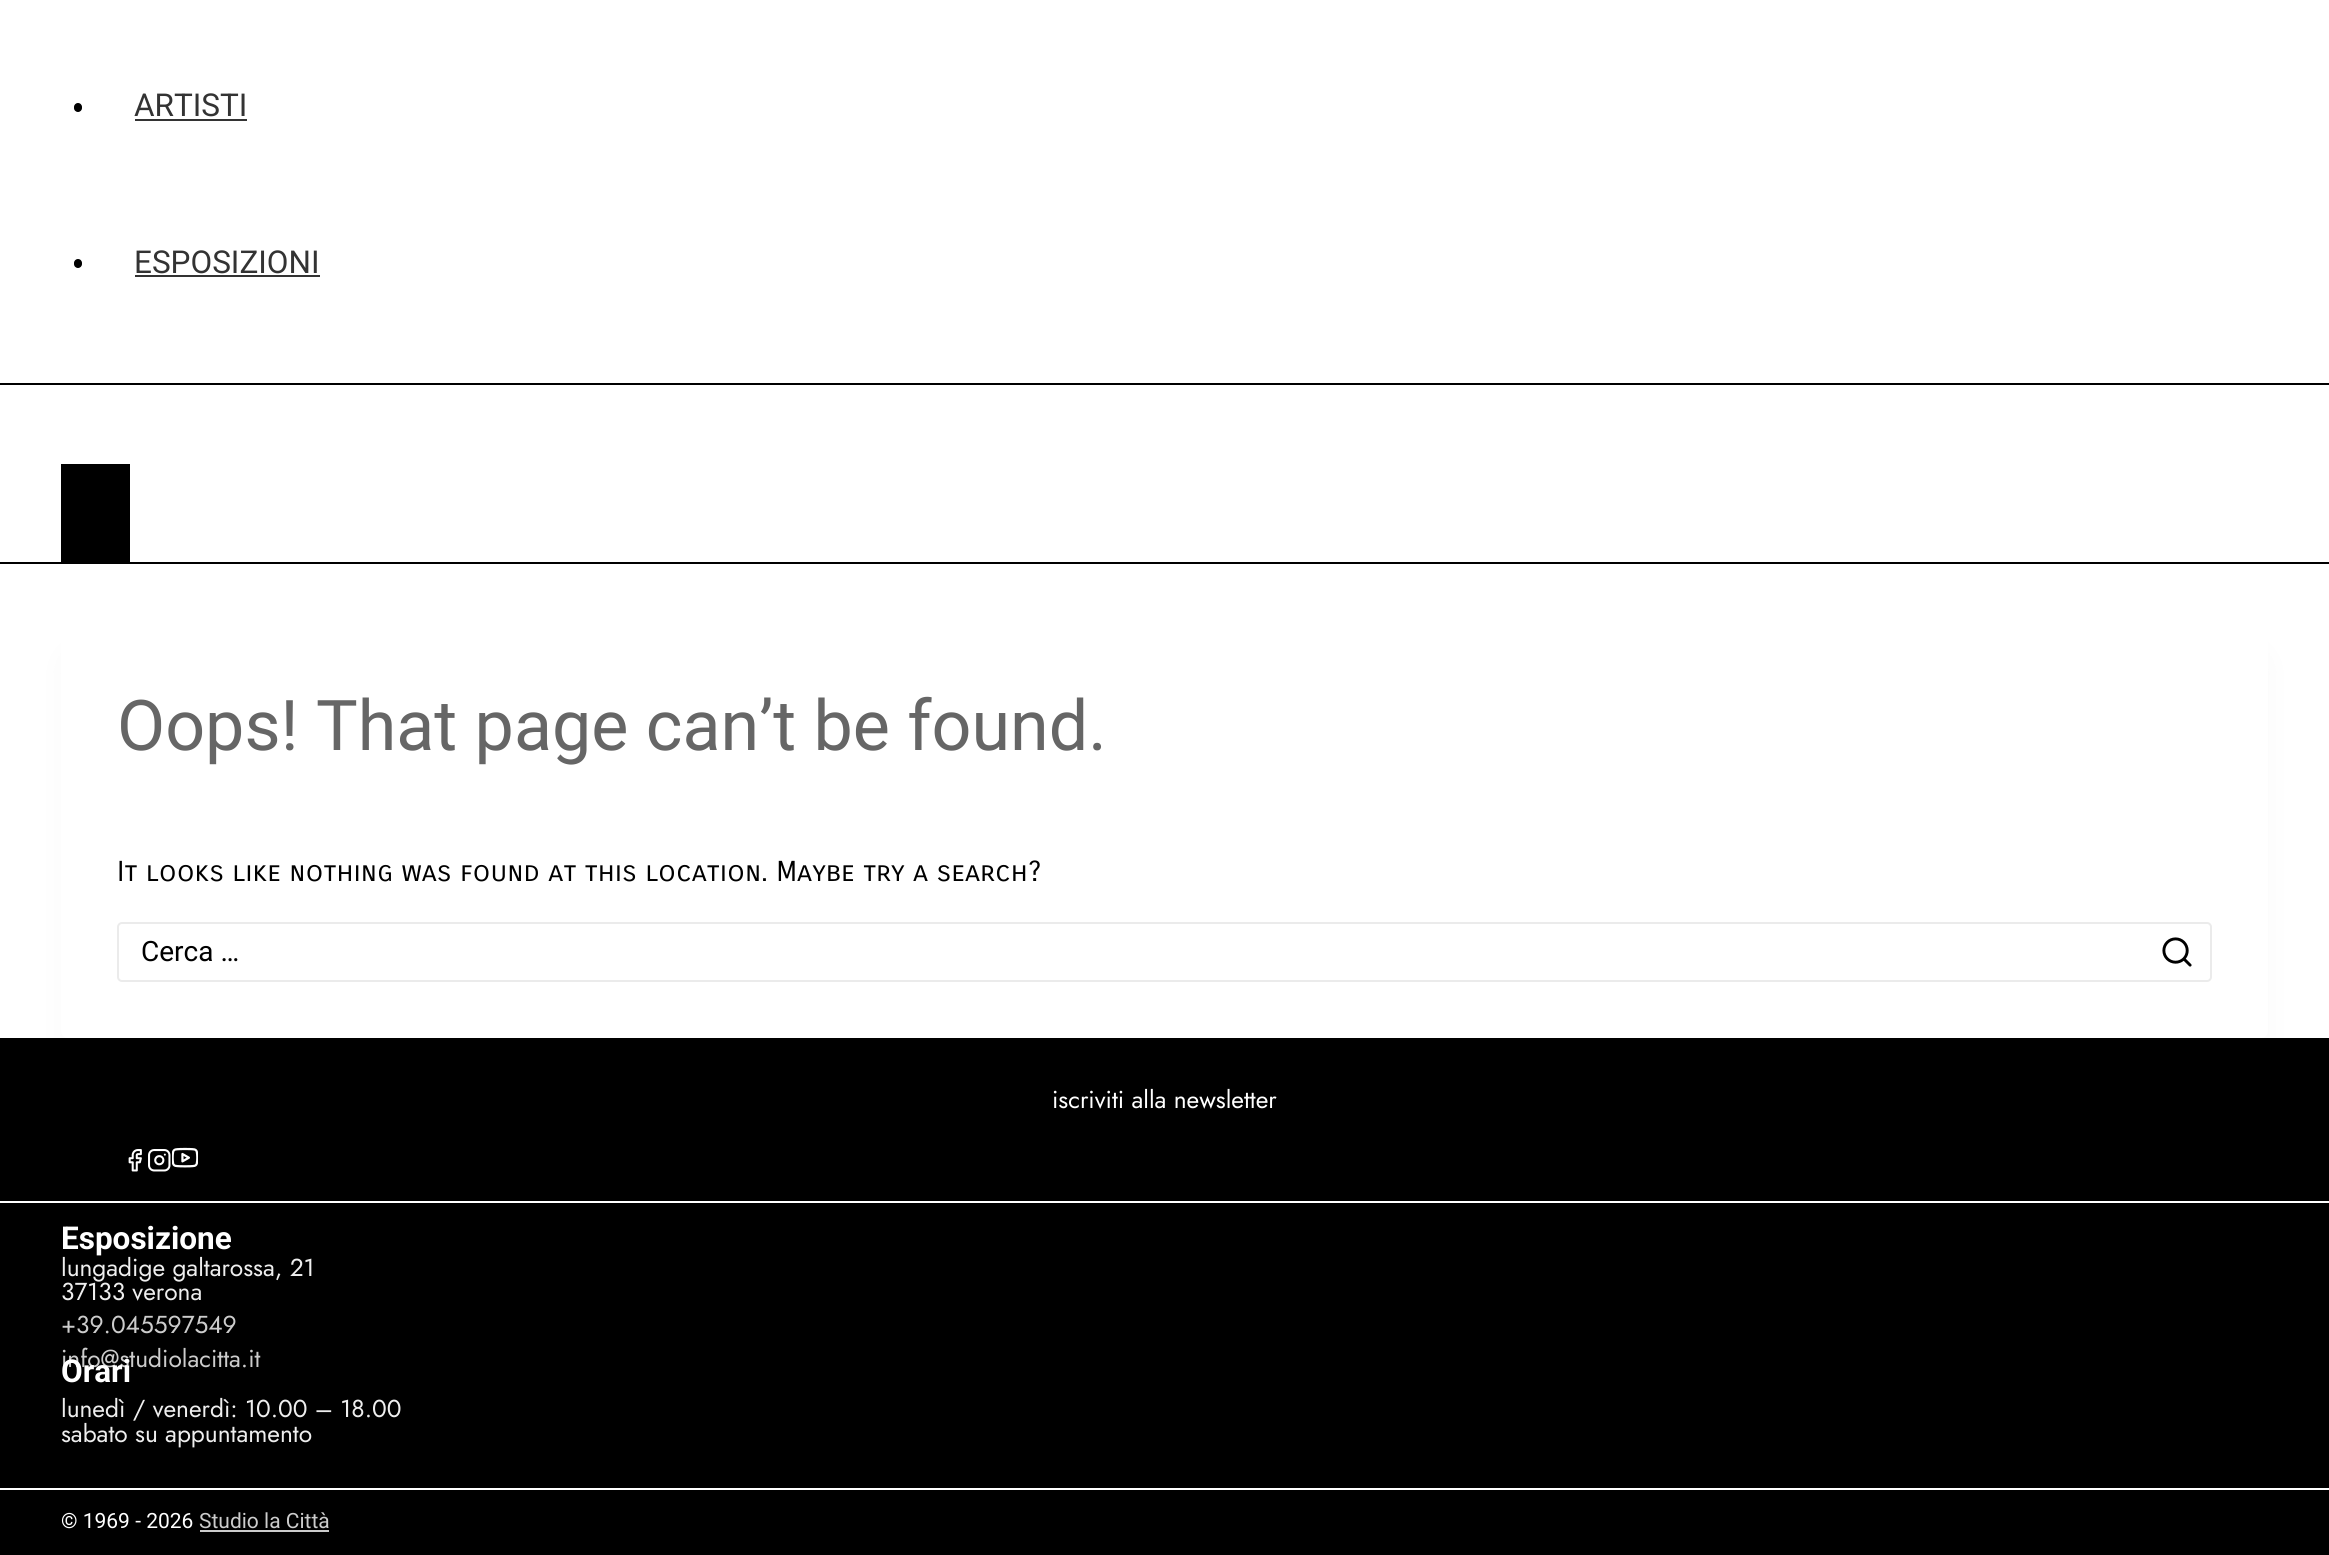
import math
import cairo


def use_color(cr, r, g, b):
  cr.set_source_rgb(r / 255, g / 255, b / 255)

def text(cr, x, y, s, family, size, color, bold=False, italic=False):
  cr.select_font_face(family, cairo.FONT_SLANT_ITALIC if italic else cairo.FONT_SLANT_NORMAL, cairo.FONT_WEIGHT_BOLD if bold else cairo.FONT_WEIGHT_NORMAL)
  cr.set_font_size(size)
  use_color(cr, *color)
  cr.move_to(x, y)
  cr.show_text(s)

def box(cr, x, y, w, h, *color):
  use_color(cr, *color)
  cr.rectangle(x, y, w, h)
  cr.fill()

def round_rect(cr, x, y, w, h, r):
  cr.new_sub_path()
  for i, (u, v) in enumerate([(x + w - r, y + h - r), (x + r, y + h - r), (x + r, y + r), (x + w - r, y + r)]):
    cr.arc(u, v, r, i * math.pi / 2, (i + 1) * math.pi / 2)
  cr.close_path()

def shadow(cr, x, y, w, h, r, blur, alpha):
  cr.push_group_with_content(cairo.CONTENT_ALPHA)
  cr.set_operator(cairo.OPERATOR_SOURCE)
  for i in range(15, -16, -2):
    e = blur * i / 6
    if min(w, h) + 2 * e > 0:
      cr.set_source_rgba(0, 0, 0, alpha * math.erfc((i - 1) / 8.5) / 2)
      round_rect(cr, x - e, y - e, w + 2 * e, h + 2 * e, max(0, min(r + e + blur * .6, min(w, h) / 2 + e)))
      cr.fill()
  cr.mask(cr.pop_group())

def picture(cr, path, x, y, w, h):
  cr.save()
  cr.set_source_surface(cairo.ImageSurface.create_from_png(path), x, y)
  cr.rectangle(x, y, w, h)
  cr.fill()
  cr.restore()

def draw(cr):
  use_color(cr, 255, 255, 255)
  cr.paint()
  box(cr, 0, 383, 2329, 2, 0, 0, 0)
  round_rect(cr, 74, 103, 8, 9, 4)
  cr.fill()
  box(cr, 135, 119, 112, 2, 51, 51, 51)
  use_color(cr, 0, 0, 0)
  round_rect(cr, 74, 259, 8, 9, 4)
  cr.fill()
  box(cr, 135, 275, 185, 2, 51, 51, 51)
  box(cr, 0, 562, 2329, 2, 0, 0, 0)
  box(cr, 61, 464, 69, 98, 0, 0, 0)
  box(cr, 0, 1038, 2329, 517, 0, 0, 0)
  use_color(cr, 0, 0, 0)
  shadow(cr, 79, 663, 2172, 384, 0, 22, 0.05)
  use_color(cr, 255, 255, 255)
  round_rect(cr, 61, 620, 2207, 418, 7)
  cr.fill()
  round_rect(cr, 118, 923, 2093, 58, 4)
  use_color(cr, 235, 235, 235)
  cr.stroke()
  picture(cr, "img_01.png", 2162, 937, 30, 30)
  picture(cr, "img_02.png", 128, 1149, 14, 23)
  picture(cr, "img_03.png", 148, 1149, 23, 23)
  picture(cr, "img_04.png", 172, 1147, 26, 21)
  box(cr, 0, 1201, 2329, 2, 255, 255, 255)
  box(cr, 0, 1488, 2329, 2, 255, 255, 255)
  box(cr, 200, 1530, 129, 2, 204, 204, 204)
  text(cr, 134, 116, "ARTISTI", "Roboto", 31.5, (51, 51, 51))
  text(cr, 134, 273, "ESPOSIZIONI", "Roboto", 31.5, (51, 51, 51))
  text(cr, 117, 750, "Oops! That page can’t be found.", "Roboto", 70, (102, 102, 102))
  text(cr, 117, 881, "It looks like nothing was found at this location. Maybe try a search?", "Carrois Gothic SC", 28, (0, 0, 0))
  text(cr, 141, 961, "Cerca …", "Roboto", 28, (0, 0, 0))
  text(cr, 1052, 1108, "iscriviti alla newsletter", "Jost", 24.5, (255, 255, 255))
  text(cr, 61, 1249, "Esposizione", "Roboto", 31.5, (255, 255, 255), bold=True)
  text(cr, 61, 1276, "lungadige galtarossa, 21", "Jost", 24.5, (238, 238, 238))
  text(cr, 61, 1300, "37133 verona", "Jost", 24.5, (238, 238, 238))
  text(cr, 61, 1333, "+39.045597549", "Jost", 24.5, (204, 204, 204))
  text(cr, 61, 1367, "info@studiolacitta.it", "Jost", 24.5, (204, 204, 204))
  text(cr, 61, 1382, "Orari", "Roboto", 31.5, (255, 255, 255), bold=True)
  text(cr, 61, 1417, "lunedì / venerdì: 10.00 – 18.00", "Jost", 24.5, (238, 238, 238))
  text(cr, 61, 1442, "sabato su appuntamento", "Jost", 24.5, (238, 238, 238))
  text(cr, 61, 1528, "© 1969 - 2026", "Roboto", 21, (255, 255, 255))
  text(cr, 199, 1528, "Studio la Città", "Roboto", 21, (204, 204, 204))


surface = cairo.ImageSurface(cairo.FORMAT_RGB24, 2329, 1555)
cr = cairo.Context(surface)
options = cairo.FontOptions()
options.set_hint_metrics(cairo.HINT_METRICS_OFF)
options.set_hint_style(cairo.HINT_STYLE_NONE)
cr.set_font_options(options)
cr.set_miter_limit(4)
draw(cr)
surface.write_to_png("out.png")
